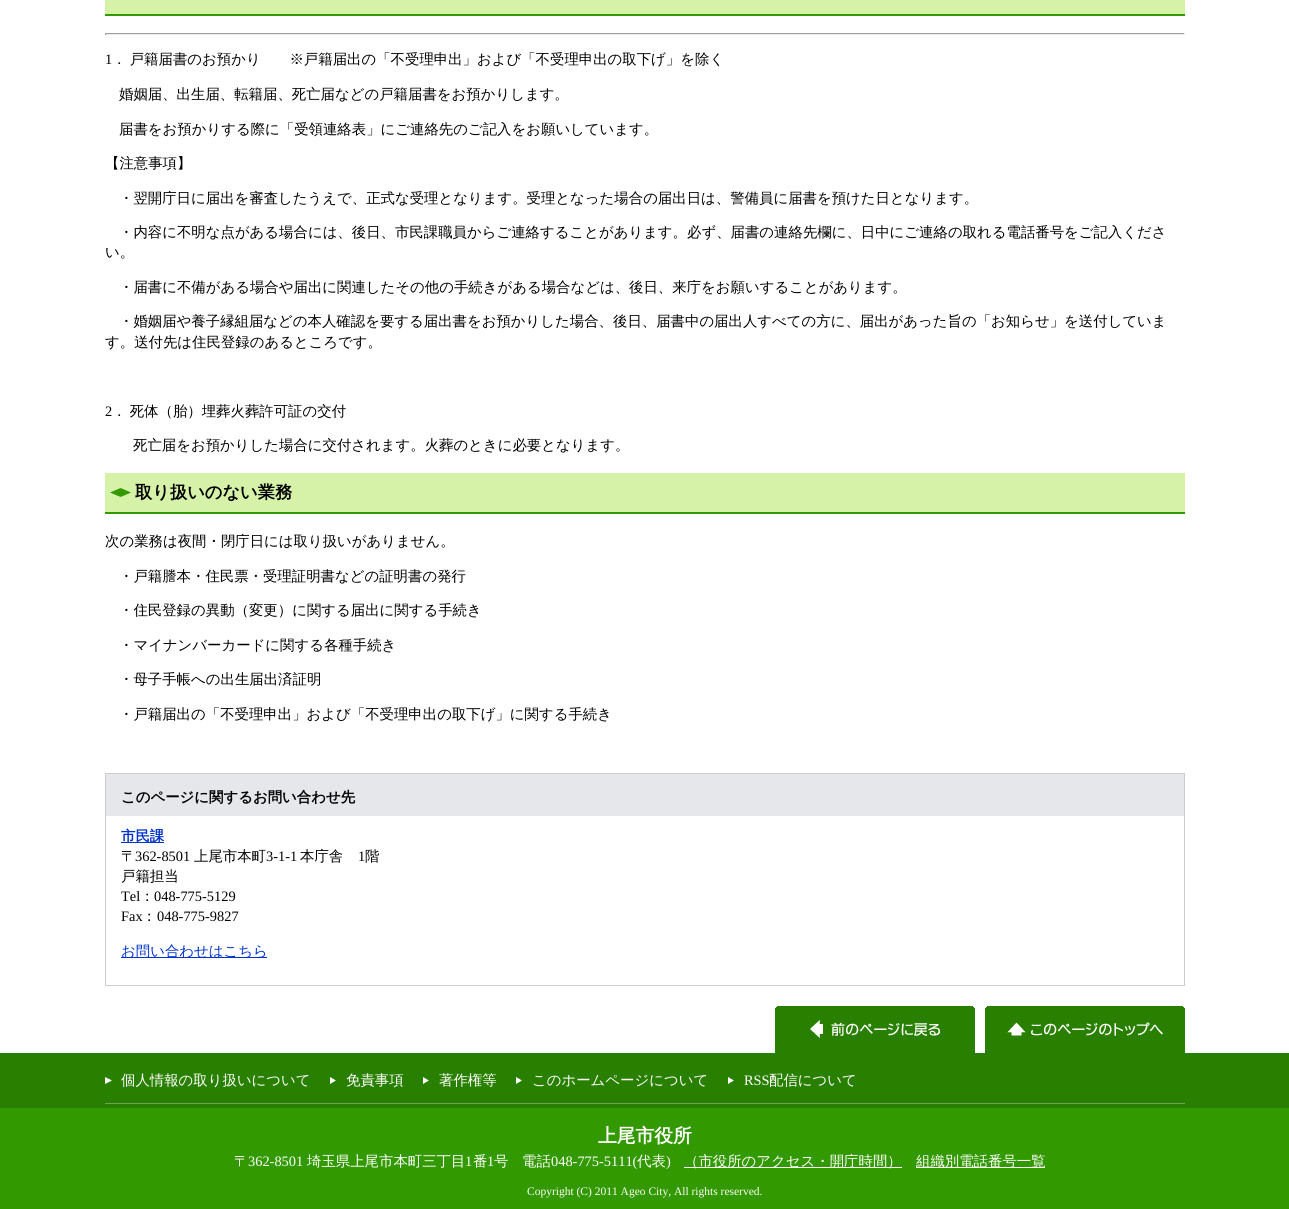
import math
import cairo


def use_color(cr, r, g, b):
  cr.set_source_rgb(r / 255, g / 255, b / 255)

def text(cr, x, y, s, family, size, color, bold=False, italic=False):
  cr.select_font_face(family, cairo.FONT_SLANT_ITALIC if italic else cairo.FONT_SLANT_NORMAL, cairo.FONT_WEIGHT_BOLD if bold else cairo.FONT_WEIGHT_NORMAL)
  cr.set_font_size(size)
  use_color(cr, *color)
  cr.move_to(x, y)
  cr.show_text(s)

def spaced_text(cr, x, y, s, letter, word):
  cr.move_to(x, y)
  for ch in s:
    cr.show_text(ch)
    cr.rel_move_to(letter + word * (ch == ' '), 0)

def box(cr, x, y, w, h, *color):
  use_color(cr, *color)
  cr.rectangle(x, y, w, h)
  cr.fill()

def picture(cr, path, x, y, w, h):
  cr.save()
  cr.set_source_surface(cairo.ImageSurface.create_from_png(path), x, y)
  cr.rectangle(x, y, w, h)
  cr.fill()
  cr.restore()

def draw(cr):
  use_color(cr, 255, 255, 255)
  cr.paint()
  box(cr, 105, 0, 1080, 14, 213, 242, 168)
  box(cr, 105, 14, 1080, 2, 50, 153, 0)
  box(cr, 105, 33, 1080, 1, 159, 159, 159)
  box(cr, 1184, 33, 1, 2, 238, 238, 238)
  box(cr, 105, 34, 1080, 1, 238, 238, 238)
  box(cr, 105, 33, 1, 2, 159, 159, 159)
  box(cr, 105, 473, 1080, 39, 213, 242, 168)
  picture(cr, "img_01.png", 110, 488, 21, 9)
  box(cr, 105, 512, 1080, 2, 50, 153, 0)
  cr.rectangle(105.5, 773.5, 1079, 212)
  use_color(cr, 204, 204, 204)
  cr.set_line_width(1)
  cr.stroke()
  box(cr, 106, 774, 1078, 42, 230, 231, 234)
  box(cr, 121, 842, 43, 1, 0, 51, 204)
  box(cr, 121, 957, 146, 1, 0, 51, 204)
  picture(cr, "img_02.png", 775, 1006, 200, 47)
  picture(cr, "img_03.png", 985, 1006, 200, 47)
  box(cr, 0, 1108, 1289, 101, 50, 153, 0)
  box(cr, 0, 1053, 1289, 55, 41, 128, 0)
  box(cr, 105, 1103, 1080, 1, 106, 166, 77)
  picture(cr, "img_04.png", 105, 1077, 7, 7)
  picture(cr, "img_05.png", 330, 1077, 6, 7)
  picture(cr, "img_05.png", 423, 1077, 6, 7)
  picture(cr, "img_05.png", 516, 1077, 6, 7)
  picture(cr, "img_05.png", 728, 1077, 6, 7)
  box(cr, 684, 1167, 218, 1, 255, 255, 255)
  box(cr, 916, 1167, 129, 1, 255, 255, 255)
  text(cr, 105, 64, "1", "Liberation Serif", 14.4, (0, 0, 0))
  cr.select_font_face("WenQuanYi Zen Hei Medium")
  spaced_text(cr, 112, 64, "． 戸籍届書のお預かり　　※戸籍届出の「不受理申出」および「不受理申出の取下げ」を除く", 0, -1)
  text(cr, 119, 99, "婚姻届、出生届、転籍届、死亡届などの戸籍届書をお預かりします。", "WenQuanYi Zen Hei Medium", 14.4, (0, 0, 0))
  text(cr, 119, 134, "届書をお預かりする際に「受領連絡表」にご連絡先のご記入をお願いしています。", "WenQuanYi Zen Hei Medium", 14.4, (0, 0, 0))
  text(cr, 105, 168, "【注意事項】", "WenQuanYi Zen Hei Medium", 14.4, (0, 0, 0))
  text(cr, 119, 203, "・翌開庁日に届出を審査したうえで、正式な受理となります。受理となった場合の届出日は、警備員に届書を預けた日となります。", "WenQuanYi Zen Hei Medium", 14.4, (0, 0, 0))
  text(cr, 119, 237, "・内容に不明な点がある場合には、後日、市民課職員からご連絡することがあります。必ず、届書の連絡先欄に、日中にご連絡の取れる電話番号をご記入くださ", "WenQuanYi Zen Hei Medium", 14.4, (0, 0, 0))
  text(cr, 105, 257, "い。", "WenQuanYi Zen Hei Medium", 14.4, (0, 0, 0))
  text(cr, 119, 292, "・届書に不備がある場合や届出に関連したその他の手続きがある場合などは、後日、来庁をお願いすることがあります。", "WenQuanYi Zen Hei Medium", 14.4, (0, 0, 0))
  text(cr, 119, 326, "・婚姻届や養子縁組届などの本人確認を要する届出書をお預かりした場合、後日、届書中の届出人すべての方に、届出があった旨の「お知らせ」を送付していま", "WenQuanYi Zen Hei Medium", 14.4, (0, 0, 0))
  text(cr, 105, 347, "す。送付先は住民登録のあるところです。", "WenQuanYi Zen Hei Medium", 14.4, (0, 0, 0))
  text(cr, 105, 416, "2", "Liberation Serif", 14.4, (0, 0, 0))
  cr.select_font_face("WenQuanYi Zen Hei Medium")
  spaced_text(cr, 112, 416, "． 死体（胎）埋葬火葬許可証の交付", 0, -1)
  text(cr, 133, 450, "死亡届をお預かりした場合に交付されます。火葬のときに必要となります。", "WenQuanYi Zen Hei Medium", 14.4, (0, 0, 0))
  text(cr, 135, 498, "取り扱いのない業務", "WenQuanYi Zen Hei", 17.25, (0, 0, 0), bold=True)
  text(cr, 105, 546, "次の業務は夜間・閉庁日には取り扱いがありません。", "WenQuanYi Zen Hei Medium", 14.4, (0, 0, 0))
  text(cr, 119, 581, "・戸籍謄本・住民票・受理証明書などの証明書の発行", "WenQuanYi Zen Hei Medium", 14.4, (0, 0, 0))
  text(cr, 119, 615, "・住民登録の異動（変更）に関する届出に関する手続き", "WenQuanYi Zen Hei Medium", 14.4, (0, 0, 0))
  text(cr, 119, 650, "・マイナンバーカードに関する各種手続き", "WenQuanYi Zen Hei Medium", 14.4, (0, 0, 0))
  text(cr, 119, 684, "・母子手帳への出生届出済証明", "WenQuanYi Zen Hei Medium", 14.4, (0, 0, 0))
  text(cr, 119, 719, "・戸籍届出の「不受理申出」および「不受理申出の取下げ」に関する手続き", "WenQuanYi Zen Hei Medium", 14.4, (0, 0, 0))
  text(cr, 121, 802, "このページに関するお問い合わせ先", "WenQuanYi Zen Hei", 14.4, (0, 0, 0), bold=True)
  text(cr, 121, 841, "市民課", "WenQuanYi Zen Hei", 14.4, (0, 51, 204), bold=True)
  text(cr, 121, 861, "〒", "WenQuanYi Zen Hei Medium", 14.4, (0, 0, 0))
  text(cr, 135, 861, "362-8501", "Liberation Serif", 14.4, (0, 0, 0))
  text(cr, 194, 861, "上尾市本町", "WenQuanYi Zen Hei Medium", 14.4, (0, 0, 0))
  text(cr, 266, 861, "3-1-1", "Liberation Serif", 14.4, (0, 0, 0))
  text(cr, 300, 861, "本庁舎", "WenQuanYi Zen Hei Medium", 14.4, (0, 0, 0))
  text(cr, 358, 861, "1", "Liberation Serif", 14.4, (0, 0, 0))
  text(cr, 365, 861, "階", "WenQuanYi Zen Hei Medium", 14.4, (0, 0, 0))
  text(cr, 121, 881, "戸籍担当", "WenQuanYi Zen Hei Medium", 14.4, (0, 0, 0))
  text(cr, 121, 901, "Tel", "Liberation Serif", 14.4, (0, 0, 0))
  text(cr, 140, 901, "：", "WenQuanYi Zen Hei Medium", 14.4, (0, 0, 0))
  text(cr, 154, 901, "048-775-5129", "Liberation Serif", 14.4, (0, 0, 0))
  text(cr, 121, 921, "Fax", "Liberation Serif", 14.4, (0, 0, 0))
  text(cr, 142, 921, "：", "WenQuanYi Zen Hei Medium", 14.4, (0, 0, 0))
  text(cr, 157, 921, "048-775-9827", "Liberation Serif", 14.4, (0, 0, 0))
  text(cr, 121, 956, "お問い合わせはこちら", "WenQuanYi Zen Hei Medium", 14.4, (0, 51, 204))
  text(cr, 121, 1085, "個人情報の取り扱いについて", "WenQuanYi Zen Hei Medium", 14.4, (255, 255, 255))
  text(cr, 346, 1085, "免責事項", "WenQuanYi Zen Hei Medium", 14.4, (255, 255, 255))
  text(cr, 439, 1085, "著作権等", "WenQuanYi Zen Hei Medium", 14.4, (255, 255, 255))
  text(cr, 532, 1085, "このホームページについて", "WenQuanYi Zen Hei Medium", 14.4, (255, 255, 255))
  text(cr, 744, 1085, "RSS", "Liberation Serif", 14.4, (255, 255, 255))
  text(cr, 769, 1085, "配信について", "WenQuanYi Zen Hei Medium", 14.4, (255, 255, 255))
  text(cr, 598, 1142, "上尾市役所", "WenQuanYi Zen Hei", 18.75, (255, 255, 255), bold=True)
  text(cr, 234, 1166, "〒", "WenQuanYi Zen Hei Medium", 14.4, (255, 255, 255))
  text(cr, 248, 1166, "362-8501", "Liberation Serif", 14.4, (255, 255, 255))
  text(cr, 307, 1166, "埼玉県上尾市本町三丁目", "WenQuanYi Zen Hei Medium", 14.4, (255, 255, 255))
  text(cr, 465, 1166, "1", "Liberation Serif", 14.4, (255, 255, 255))
  text(cr, 473, 1166, "番", "WenQuanYi Zen Hei Medium", 14.4, (255, 255, 255))
  text(cr, 487, 1166, "1", "Liberation Serif", 14.4, (255, 255, 255))
  text(cr, 494, 1166, "号", "WenQuanYi Zen Hei Medium", 14.4, (255, 255, 255))
  text(cr, 522, 1166, "電話", "WenQuanYi Zen Hei Medium", 14.4, (255, 255, 255))
  text(cr, 551, 1166, "048-775-5111(", "Liberation Serif", 14.4, (255, 255, 255))
  text(cr, 637, 1166, "代表", "WenQuanYi Zen Hei Medium", 14.4, (255, 255, 255))
  text(cr, 666, 1166, ")", "Liberation Serif", 14.4, (255, 255, 255))
  text(cr, 684, 1166, "（市役所のアクセス・開庁時間）", "WenQuanYi Zen Hei Medium", 14.4, (255, 255, 255))
  text(cr, 916, 1166, "組織別電話番号一覧", "WenQuanYi Zen Hei Medium", 14.4, (255, 255, 255))
  text(cr, 527, 1195, "Copyright (C) 2011 Ageo City, All rights reserved.", "Liberation Serif", 11.5, (255, 255, 255))


surface = cairo.ImageSurface(cairo.FORMAT_RGB24, 1289, 1209)
cr = cairo.Context(surface)
options = cairo.FontOptions()
options.set_hint_metrics(cairo.HINT_METRICS_OFF)
options.set_hint_style(cairo.HINT_STYLE_NONE)
cr.set_font_options(options)
cr.set_miter_limit(4)
draw(cr)
surface.write_to_png("out.png")
